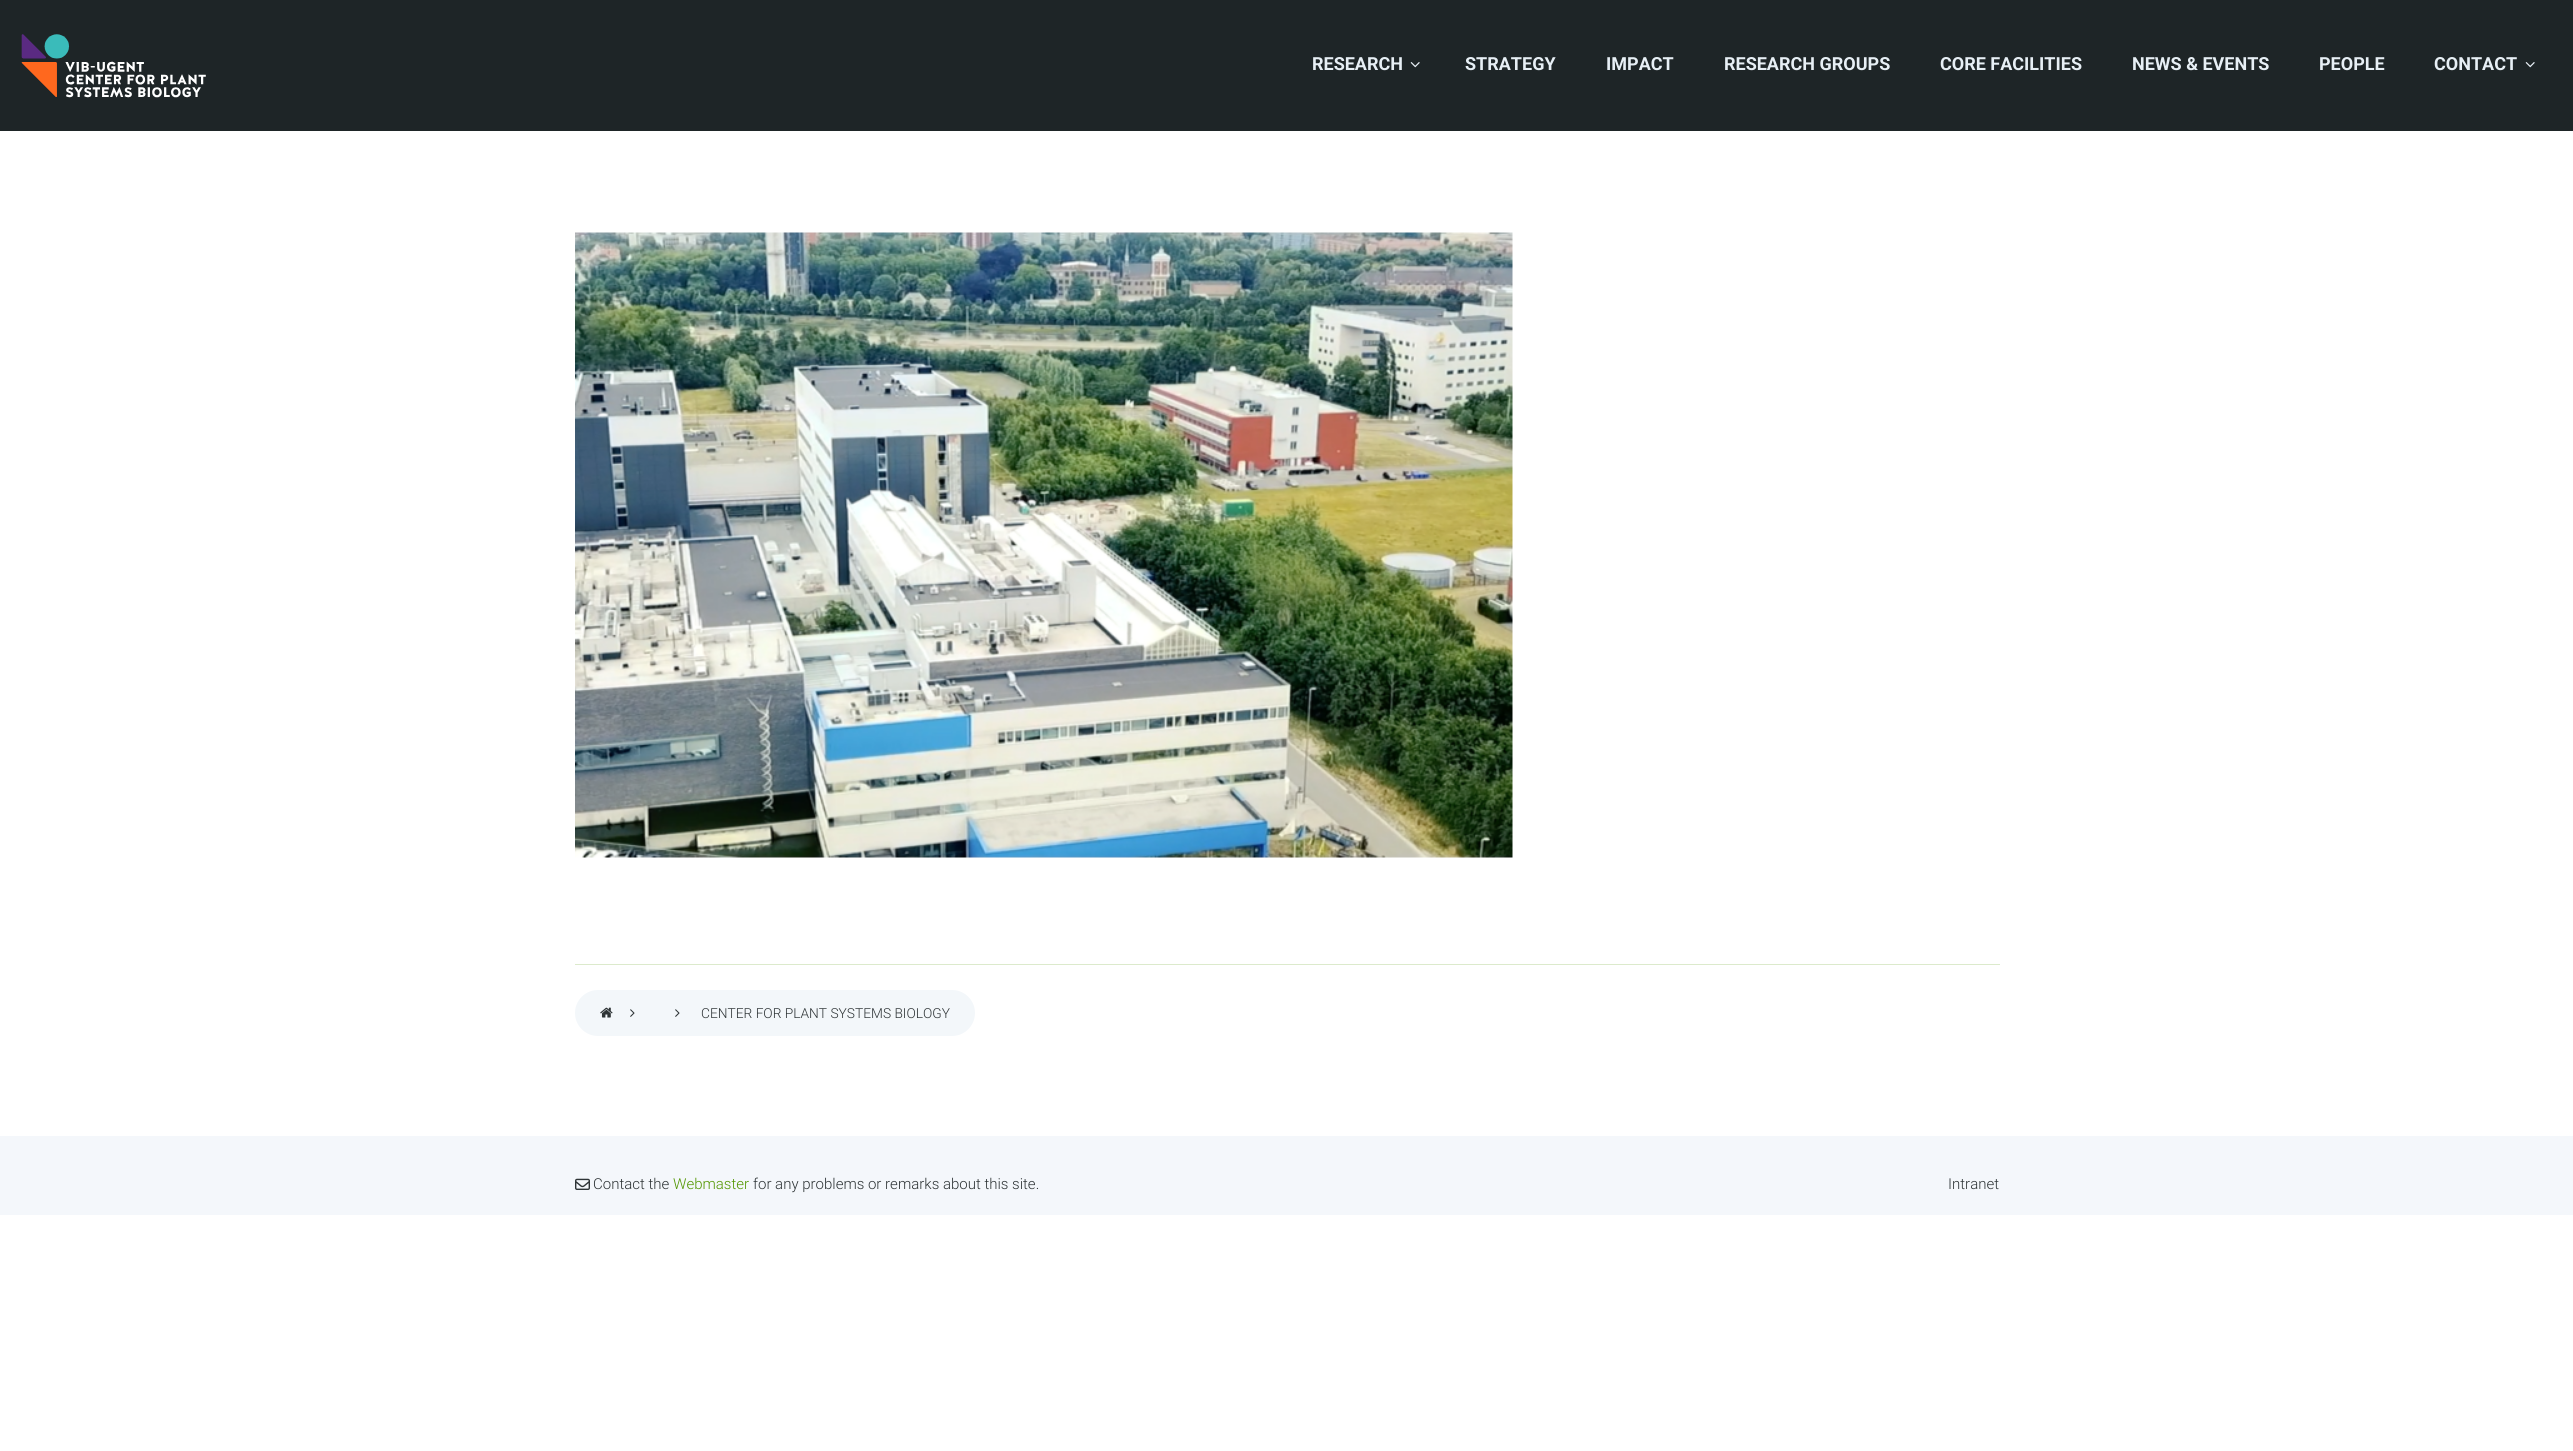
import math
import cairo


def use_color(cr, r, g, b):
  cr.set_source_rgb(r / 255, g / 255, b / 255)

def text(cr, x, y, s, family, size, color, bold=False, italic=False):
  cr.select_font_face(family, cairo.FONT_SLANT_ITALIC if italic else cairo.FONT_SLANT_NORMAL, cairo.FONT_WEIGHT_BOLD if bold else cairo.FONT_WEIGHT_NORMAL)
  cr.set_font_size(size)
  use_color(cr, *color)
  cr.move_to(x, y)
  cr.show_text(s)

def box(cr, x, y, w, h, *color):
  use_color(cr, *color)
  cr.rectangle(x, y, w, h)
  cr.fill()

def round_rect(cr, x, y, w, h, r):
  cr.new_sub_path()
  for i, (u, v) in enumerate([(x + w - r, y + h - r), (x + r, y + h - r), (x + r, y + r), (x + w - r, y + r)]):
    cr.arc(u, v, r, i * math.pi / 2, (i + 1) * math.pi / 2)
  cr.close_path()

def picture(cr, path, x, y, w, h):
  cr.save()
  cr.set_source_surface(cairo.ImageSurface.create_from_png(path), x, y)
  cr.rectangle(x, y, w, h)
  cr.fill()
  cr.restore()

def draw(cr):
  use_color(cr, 255, 255, 255)
  cr.paint()
  box(cr, 0, 0, 2573, 131, 30, 37, 39)
  picture(cr, "img_01.png", 21, 34, 185, 64)
  picture(cr, "img_02.png", 1410, 62, 10, 6)
  picture(cr, "img_02.png", 2525, 62, 10, 6)
  picture(cr, "img_03.png", 575, 232, 938, 626)
  box(cr, 575, 964, 1425, 1, 220, 234, 204)
  use_color(cr, 243, 247, 250)
  round_rect(cr, 575, 990, 400, 46, 23)
  cr.fill()
  picture(cr, "img_04.png", 600, 1007, 13, 11)
  picture(cr, "img_05.png", 630, 1009, 5, 8)
  picture(cr, "img_05.png", 675, 1009, 5, 8)
  box(cr, 0, 1136, 2573, 79, 244, 247, 251)
  picture(cr, "img_06.png", 575, 1178, 15, 12)
  text(cr, 1312, 70, "RESEARCH", "Roboto", 18, (231, 239, 245), bold=True)
  text(cr, 1465, 70, "STRATEGY", "Roboto", 18, (231, 239, 245), bold=True)
  text(cr, 1606, 70, "IMPACT", "Roboto", 18, (231, 239, 245), bold=True)
  text(cr, 1724, 70, "RESEARCH GROUPS", "Roboto", 18, (231, 239, 245), bold=True)
  text(cr, 1940, 70, "CORE FACILITIES", "Roboto", 18, (231, 239, 245), bold=True)
  text(cr, 2132, 70, "NEWS & EVENTS", "Roboto", 18, (231, 239, 245), bold=True)
  text(cr, 2319, 70, "PEOPLE", "Roboto", 18, (231, 239, 245), bold=True)
  text(cr, 2434, 70, "CONTACT", "Roboto", 18, (231, 239, 245), bold=True)
  text(cr, 701, 1018, "CENTER FOR PLANT SYSTEMS BIOLOGY", "Roboto Light", 13.75, (46, 52, 54))
  text(cr, 593, 1189, "Contact the", "Roboto Light", 15, (46, 52, 54))
  text(cr, 673, 1189, "Webmaster", "Roboto Light", 15, (82, 150, 0))
  text(cr, 753, 1189, "for any problems or remarks about this site.", "Roboto Light", 15, (46, 52, 54))
  text(cr, 1948, 1189, "Intranet", "Roboto Light", 15, (46, 52, 54))


surface = cairo.ImageSurface(cairo.FORMAT_RGB24, 2573, 1451)
cr = cairo.Context(surface)
options = cairo.FontOptions()
options.set_hint_metrics(cairo.HINT_METRICS_OFF)
options.set_hint_style(cairo.HINT_STYLE_NONE)
cr.set_font_options(options)
cr.set_miter_limit(4)
draw(cr)
surface.write_to_png("out.png")
